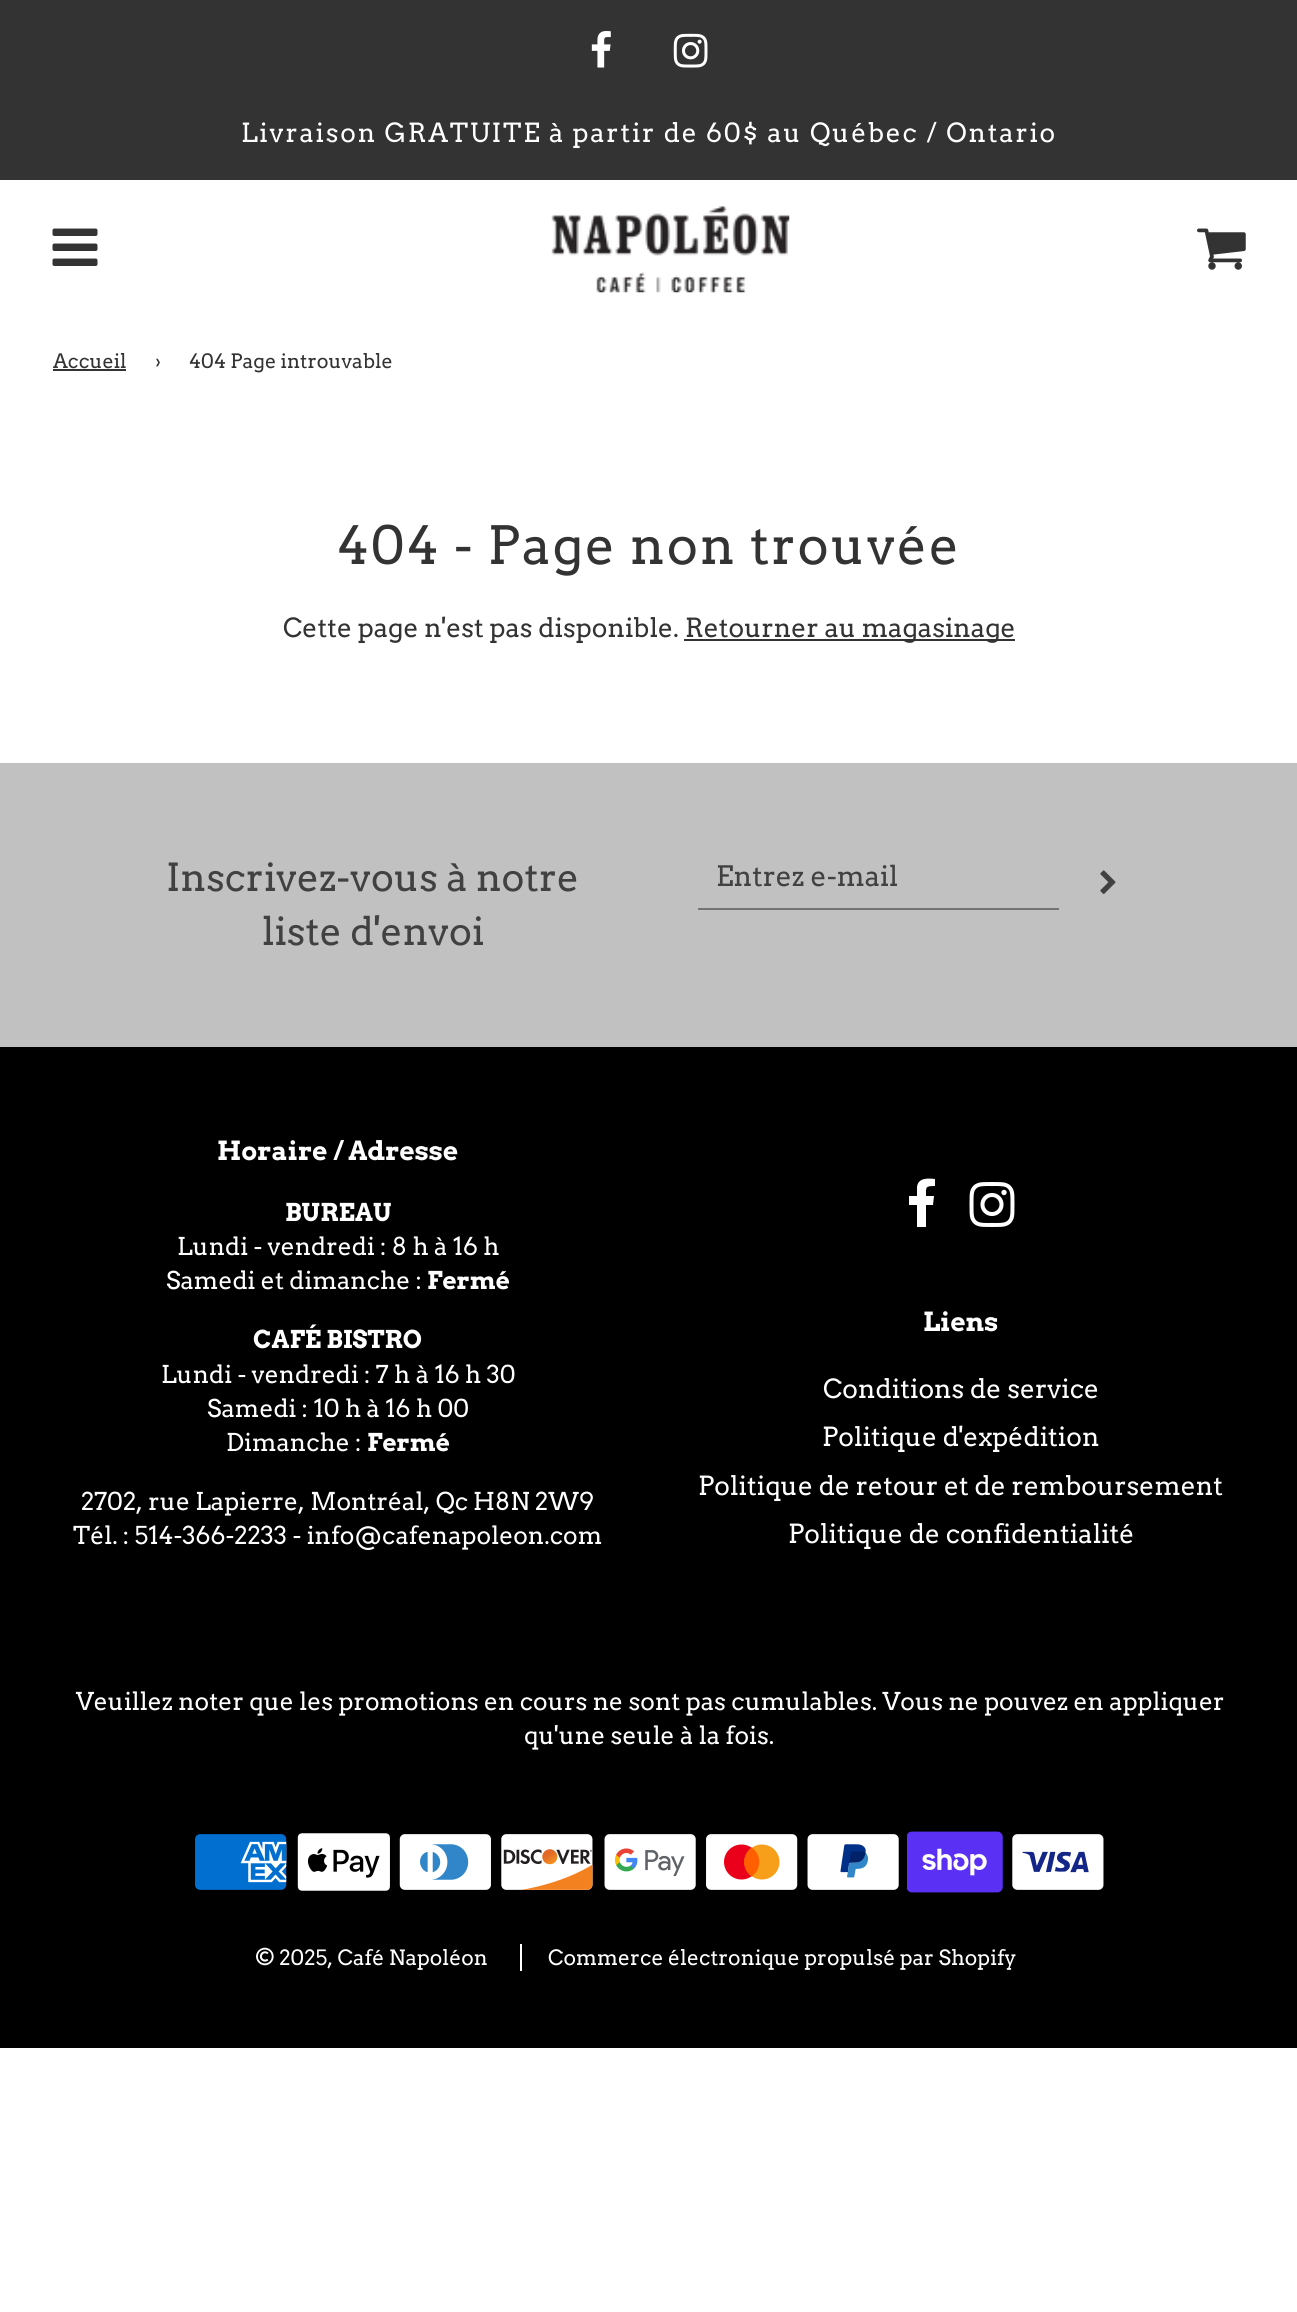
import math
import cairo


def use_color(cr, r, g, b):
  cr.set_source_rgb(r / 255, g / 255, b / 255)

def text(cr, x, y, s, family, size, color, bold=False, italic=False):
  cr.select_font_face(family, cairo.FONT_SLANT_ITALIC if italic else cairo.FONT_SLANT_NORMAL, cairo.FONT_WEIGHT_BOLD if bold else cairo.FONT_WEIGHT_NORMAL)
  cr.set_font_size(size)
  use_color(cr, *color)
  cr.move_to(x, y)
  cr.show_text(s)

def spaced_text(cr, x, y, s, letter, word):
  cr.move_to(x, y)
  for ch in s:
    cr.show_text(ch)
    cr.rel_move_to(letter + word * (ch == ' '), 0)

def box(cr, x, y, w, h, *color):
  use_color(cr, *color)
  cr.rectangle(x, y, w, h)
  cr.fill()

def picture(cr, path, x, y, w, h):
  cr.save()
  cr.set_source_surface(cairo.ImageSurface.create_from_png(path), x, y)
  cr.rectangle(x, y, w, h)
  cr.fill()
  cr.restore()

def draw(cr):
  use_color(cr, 255, 255, 255)
  cr.paint()
  box(cr, 0, 0, 1297, 180, 51, 51, 51)
  picture(cr, "img_01.png", 591, 31, 20, 37)
  picture(cr, "img_02.png", 673, 33, 35, 35)
  picture(cr, "img_03.png", 52, 228, 46, 38)
  picture(cr, "img_04.png", 551, 206, 239, 87)
  picture(cr, "img_05.png", 1197, 228, 49, 42)
  box(cr, 53, 369, 73, 2, 51, 51, 51)
  box(cr, 684, 639, 331, 2, 51, 51, 51)
  box(cr, 0, 763, 1297, 284, 193, 193, 194)
  box(cr, 698, 908, 361, 2, 116, 116, 117)
  picture(cr, "img_06.png", 1100, 870, 16, 24)
  box(cr, 0, 1047, 1297, 1001, 0, 0, 0)
  use_color(cr, 255, 255, 255)
  cr.new_path()
  cr.move_to(935, 1179)
  cr.line_to(935, 1186)
  cr.curve_to(925, 1186, 926, 1187, 926, 1196)
  cr.line_to(934, 1196)
  cr.line_to(933, 1205)
  cr.line_to(926, 1205)
  cr.line_to(926, 1227)
  cr.line_to(917, 1227)
  cr.line_to(917, 1205)
  cr.line_to(909, 1205)
  cr.line_to(909, 1196)
  cr.line_to(917, 1196)
  cr.line_to(917, 1187)
  cr.curve_to(918, 1178, 927, 1178, 935, 1179)
  cr.close_path()
  cr.fill()
  picture(cr, "img_07.png", 969, 1182, 46, 45)
  picture(cr, "img_08.png", 195, 1834, 92, 56)
  picture(cr, "img_09.png", 297, 1833, 93, 58)
  picture(cr, "img_10.png", 399, 1834, 92, 56)
  picture(cr, "img_11.png", 501, 1834, 92, 56)
  picture(cr, "img_12.png", 604, 1834, 92, 56)
  picture(cr, "img_13.png", 706, 1834, 92, 56)
  picture(cr, "img_14.png", 807, 1834, 92, 56)
  picture(cr, "img_15.png", 907, 1831, 96, 62)
  picture(cr, "img_16.png", 1012, 1834, 92, 56)
  box(cr, 520, 1944, 2, 27, 255, 255, 255)
  cr.select_font_face("Arvo")
  cr.set_font_size(26.25)
  spaced_text(cr, 241, 142, "Livraison GRATUITE à partir de 60$ au Québec / Ontario", 1.75, 0)
  text(cr, 53, 368, "Accueil", "Arvo", 19.75, (51, 51, 51))
  text(cr, 155, 368, "›", "Arvo", 19.75, (51, 51, 51))
  text(cr, 189, 368, "404 Page introuvable", "Arvo", 19.75, (51, 51, 51))
  cr.set_font_size(52.5)
  spaced_text(cr, 337, 564, "404 - Page non trouvée", 1.75, 0)
  text(cr, 283, 637, "Cette page n'est pas disponible.", "Arvo", 26.25, (51, 51, 51))
  text(cr, 685, 637, "Retourner au magasinage", "Arvo", 26.25, (51, 51, 51))
  text(cr, 166, 891, "Inscrivez-vous à notre", "Arvo", 38.5, (65, 65, 65))
  text(cr, 262, 945, "liste d'envoi", "Arvo", 38.5, (65, 65, 65))
  text(cr, 716, 886, "Entrez e-mail", "Arvo", 28, (65, 65, 65))
  text(cr, 217, 1160, "Horaire / Adresse", "Arvo", 26.25, (255, 255, 255), bold=True)
  text(cr, 285, 1221, "BUREAU", "Arvo", 24.5, (255, 255, 255), bold=True)
  text(cr, 177, 1255, "Lundi - vendredi : 8 h à 16 h", "Arvo", 24.5, (255, 255, 255))
  text(cr, 166, 1289, "Samedi et dimanche :", "Arvo", 24.5, (255, 255, 255))
  text(cr, 427, 1289, "Fermé", "Arvo", 24.5, (255, 255, 255), bold=True)
  text(cr, 253, 1348, "CAFÉ BISTRO", "Arvo", 24.5, (255, 255, 255), bold=True)
  text(cr, 161, 1383, "Lundi - vendredi : 7 h à 16 h 30", "Arvo", 24.5, (255, 255, 255))
  text(cr, 207, 1417, "Samedi : 10 h à 16 h 00", "Arvo", 24.5, (255, 255, 255))
  text(cr, 226, 1451, "Dimanche :", "Arvo", 24.5, (255, 255, 255))
  text(cr, 367, 1451, "Fermé", "Arvo", 24.5, (255, 255, 255), bold=True)
  text(cr, 81, 1510, "2702, rue Lapierre, Montréal, Qc", "Arvo", 24.5, (255, 255, 255))
  text(cr, 473, 1510, "H8N 2W9", "Arvo", 24.5, (255, 255, 255))
  text(cr, 73, 1544, "Tél. : 514-366-2233 - info@cafenapoleon.com", "Arvo", 24.5, (255, 255, 255))
  text(cr, 923, 1331, "Liens", "Arvo", 26.25, (255, 255, 255), bold=True)
  text(cr, 823, 1398, "Conditions de service", "Arvo", 26.25, (255, 255, 255))
  text(cr, 822, 1446, "Politique d'expédition", "Arvo", 26.25, (255, 255, 255))
  text(cr, 698, 1495, "Politique de retour et de remboursement", "Arvo", 26.25, (255, 255, 255))
  text(cr, 788, 1543, "Politique de confidentialité", "Arvo", 26.25, (255, 255, 255))
  text(cr, 76, 1710, "Veuillez noter que les promotions en cours ne sont pas cumulables. Vous ne pouvez en appliquer", "Arvo", 24.5, (255, 255, 255))
  text(cr, 524, 1744, "qu'une seule à la fois.", "Arvo", 24.5, (255, 255, 255))
  text(cr, 255, 1965, "© 2025, Café Napoléon", "Arvo", 21, (255, 255, 255))
  text(cr, 548, 1965, "Commerce électronique propulsé par Shopify", "Arvo", 21, (255, 255, 255))


surface = cairo.ImageSurface(cairo.FORMAT_RGB24, 1297, 2312)
cr = cairo.Context(surface)
options = cairo.FontOptions()
options.set_hint_metrics(cairo.HINT_METRICS_OFF)
options.set_hint_style(cairo.HINT_STYLE_NONE)
cr.set_font_options(options)
cr.set_miter_limit(4)
draw(cr)
surface.write_to_png("out.png")
